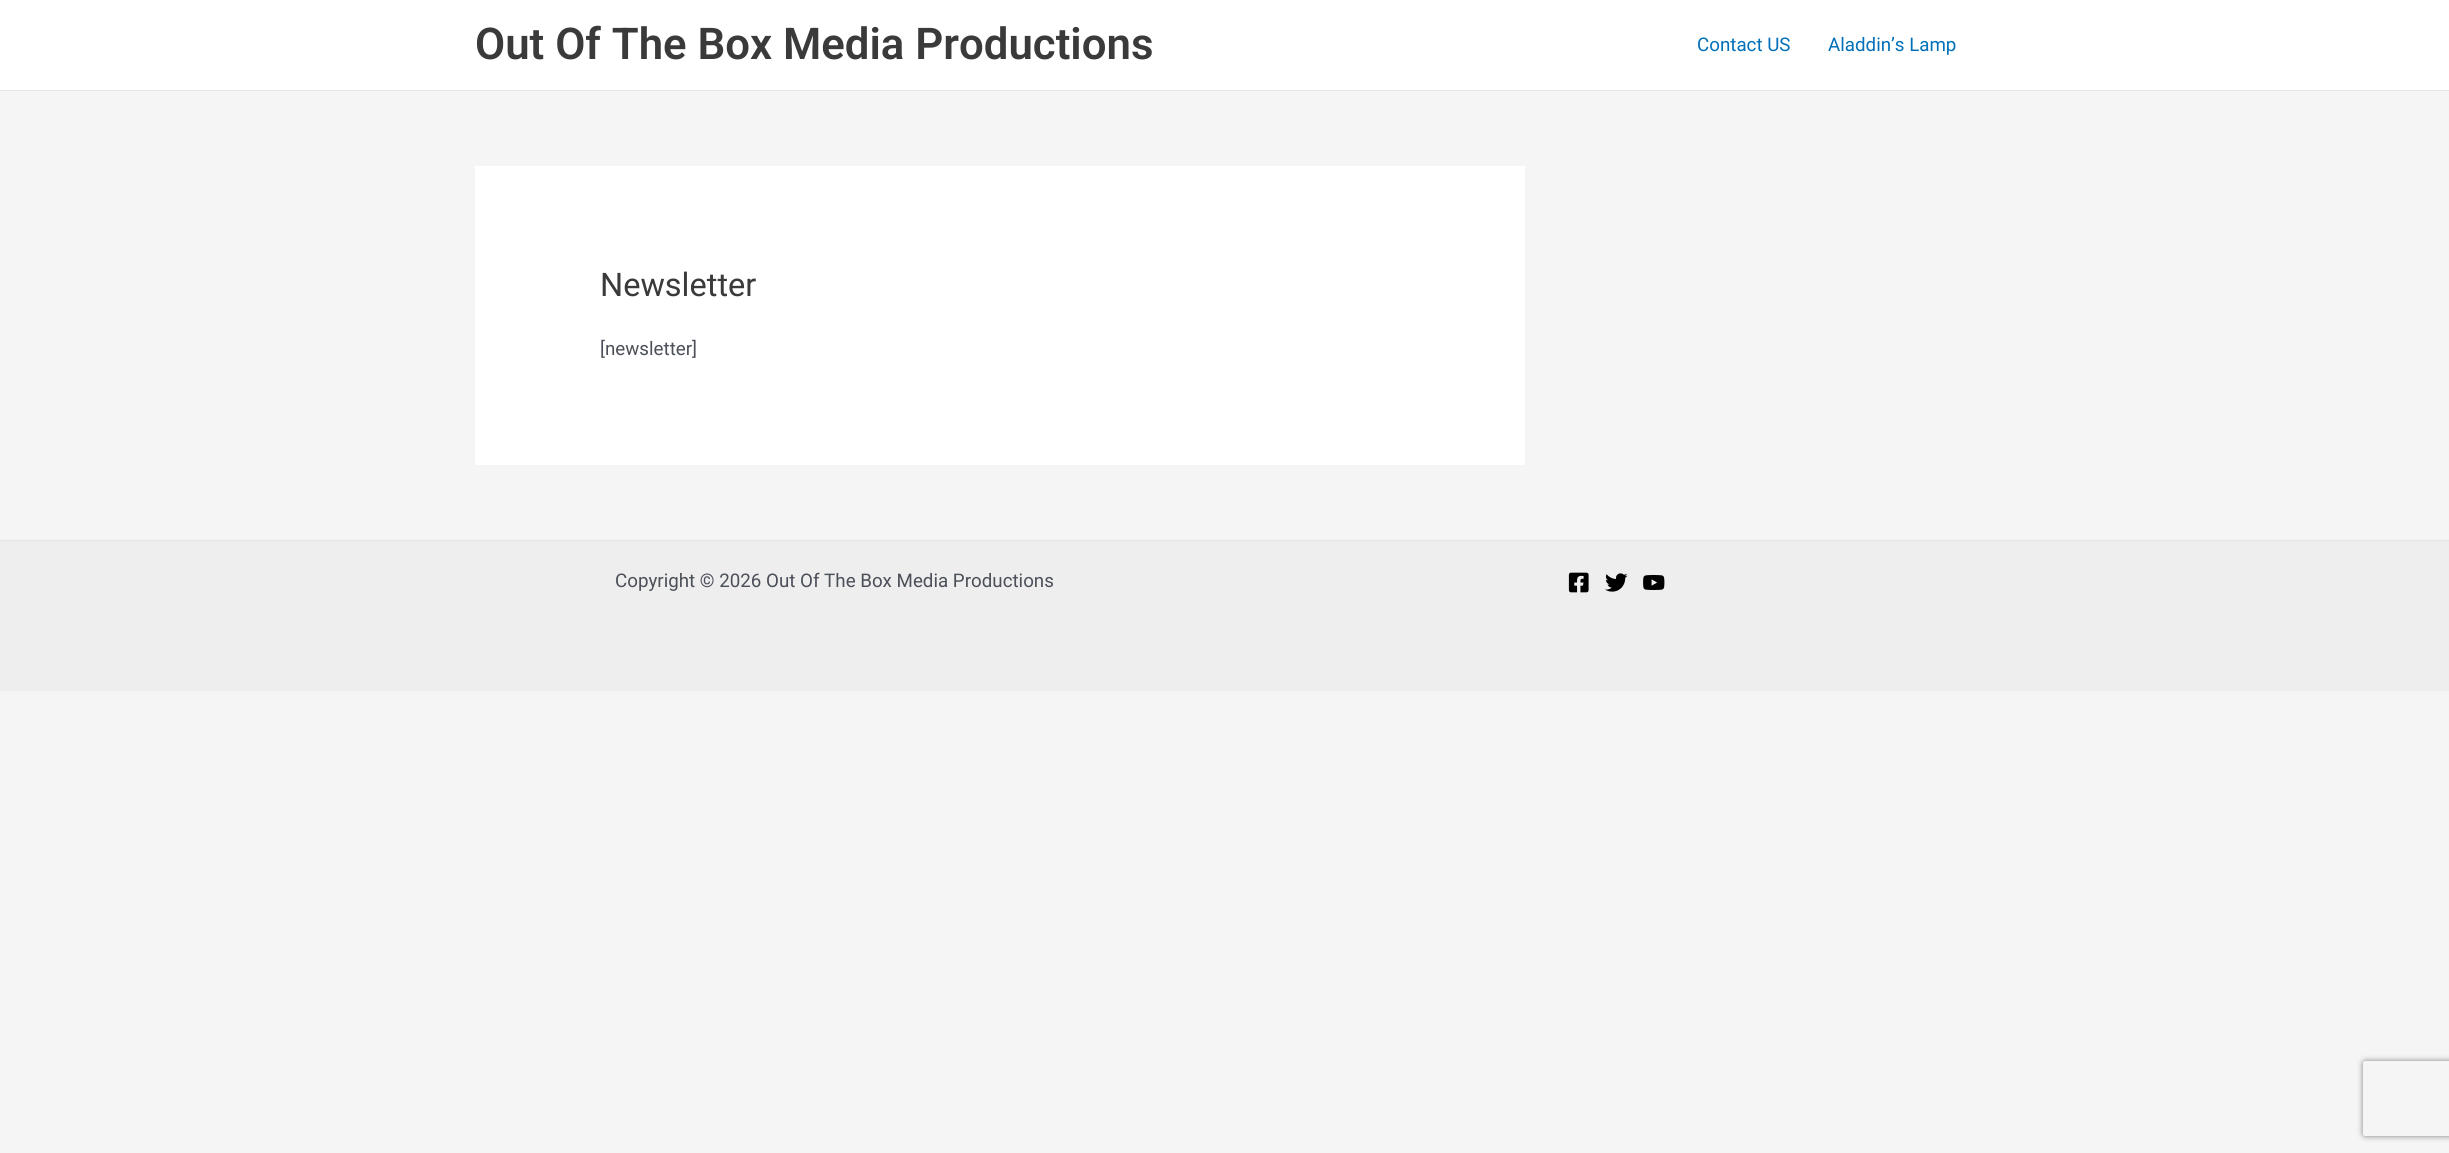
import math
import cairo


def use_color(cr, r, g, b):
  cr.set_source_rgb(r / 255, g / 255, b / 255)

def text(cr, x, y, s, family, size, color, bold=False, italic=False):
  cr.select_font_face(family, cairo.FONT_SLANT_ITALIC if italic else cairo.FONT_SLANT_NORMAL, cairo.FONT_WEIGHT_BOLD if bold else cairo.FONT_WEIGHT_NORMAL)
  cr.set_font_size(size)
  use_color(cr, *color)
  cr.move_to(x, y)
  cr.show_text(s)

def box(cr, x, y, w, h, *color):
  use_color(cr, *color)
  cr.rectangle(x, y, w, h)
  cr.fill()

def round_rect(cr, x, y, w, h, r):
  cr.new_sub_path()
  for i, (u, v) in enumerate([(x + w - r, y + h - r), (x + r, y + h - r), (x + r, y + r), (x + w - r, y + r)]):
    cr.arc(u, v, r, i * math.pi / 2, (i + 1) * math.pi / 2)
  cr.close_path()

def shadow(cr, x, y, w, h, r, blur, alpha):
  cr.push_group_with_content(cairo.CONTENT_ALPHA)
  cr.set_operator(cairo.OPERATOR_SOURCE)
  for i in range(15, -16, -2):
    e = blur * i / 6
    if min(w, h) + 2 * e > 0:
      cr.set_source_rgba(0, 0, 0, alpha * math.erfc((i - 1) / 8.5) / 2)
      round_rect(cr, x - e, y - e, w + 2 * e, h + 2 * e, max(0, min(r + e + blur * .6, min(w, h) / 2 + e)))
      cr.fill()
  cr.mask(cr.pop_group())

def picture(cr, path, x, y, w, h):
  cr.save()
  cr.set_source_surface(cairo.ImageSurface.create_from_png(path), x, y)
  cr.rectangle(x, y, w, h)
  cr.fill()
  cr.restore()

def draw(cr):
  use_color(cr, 245, 245, 245)
  cr.paint()
  box(cr, 0, 0, 2449, 90, 255, 255, 255)
  box(cr, 0, 90, 2449, 1, 229, 229, 229)
  box(cr, 475, 166, 1050, 299, 255, 255, 255)
  box(cr, 0, 541, 2449, 150, 238, 238, 238)
  box(cr, 0, 540, 2449, 1, 229, 229, 229)
  picture(cr, "img_01.png", 1568, 572, 21, 21)
  picture(cr, "img_02.png", 1605, 573, 23, 19)
  picture(cr, "img_03.png", 1643, 575, 22, 15)
  cr.save()
  cr.set_fill_rule(cairo.FILL_RULE_EVEN_ODD)
  cr.new_path()
  cr.move_to(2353, 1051)
  cr.line_to(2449, 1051)
  cr.line_to(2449, 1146)
  cr.line_to(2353, 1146)
  cr.close_path()
  cr.move_to(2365.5, 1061)
  cr.line_to(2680.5, 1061)
  cr.curve_to(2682, 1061, 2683, 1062, 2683, 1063.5)
  cr.line_to(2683, 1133.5)
  cr.curve_to(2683, 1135, 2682, 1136, 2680.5, 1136)
  cr.line_to(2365.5, 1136)
  cr.curve_to(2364, 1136, 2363, 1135, 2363, 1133.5)
  cr.line_to(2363, 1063.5)
  cr.curve_to(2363, 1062, 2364, 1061, 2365.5, 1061)
  cr.close_path()
  cr.clip()
  use_color(cr, 128, 128, 128)
  shadow(cr, 2363, 1061, 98, 75, 2.5, 3, 1)
  cr.restore()
  text(cr, 475, 59, "Out Of The Box Media Productions", "Roboto SemiBold", 43.75, (58, 58, 58))
  text(cr, 1697, 51, "Contact US", "Roboto", 18.75, (1, 112, 185))
  text(cr, 1828, 51, "Aladdin’s Lamp", "Roboto", 18.75, (1, 112, 185))
  text(cr, 600, 296, "Newsletter", "Roboto", 32.5, (58, 58, 58))
  text(cr, 600, 355, "[newsletter]", "Roboto", 18.75, (75, 79, 88))
  text(cr, 615, 587, "Copyright © 2026 Out Of The Box Media Productions", "Roboto", 18.75, (75, 79, 88))


surface = cairo.ImageSurface(cairo.FORMAT_RGB24, 2449, 1153)
cr = cairo.Context(surface)
options = cairo.FontOptions()
options.set_hint_metrics(cairo.HINT_METRICS_OFF)
options.set_hint_style(cairo.HINT_STYLE_NONE)
cr.set_font_options(options)
cr.set_miter_limit(4)
draw(cr)
surface.write_to_png("out.png")
